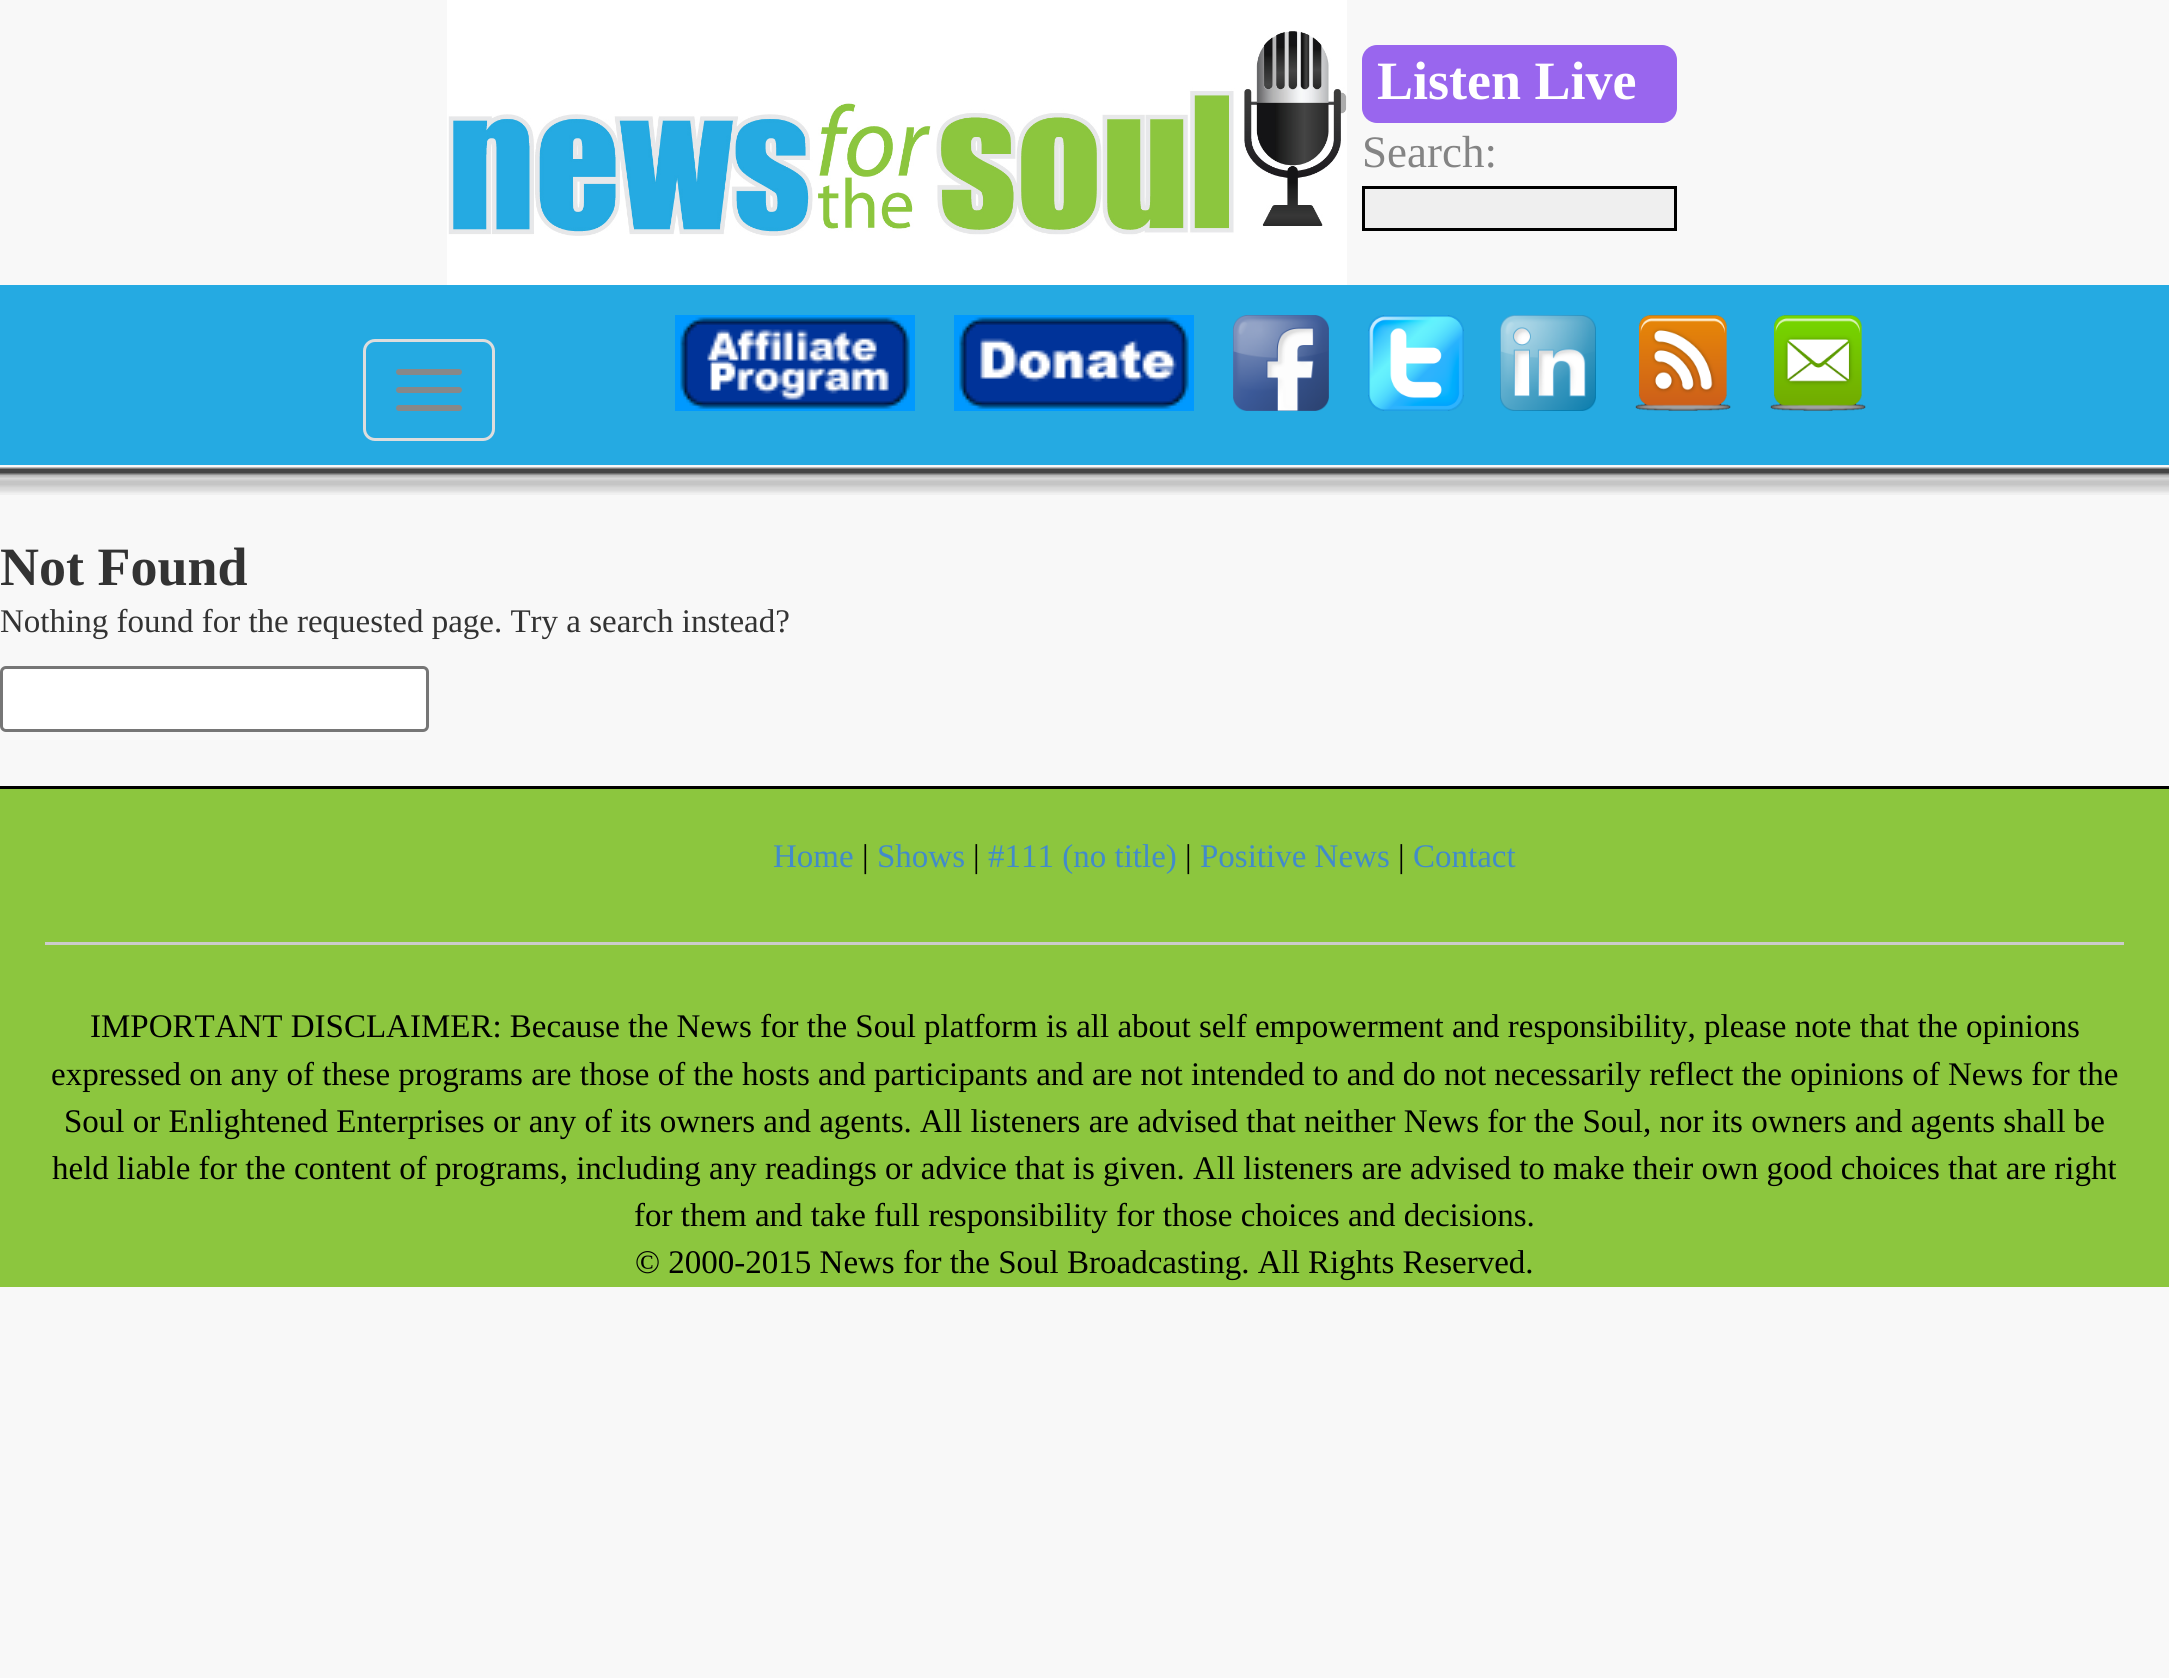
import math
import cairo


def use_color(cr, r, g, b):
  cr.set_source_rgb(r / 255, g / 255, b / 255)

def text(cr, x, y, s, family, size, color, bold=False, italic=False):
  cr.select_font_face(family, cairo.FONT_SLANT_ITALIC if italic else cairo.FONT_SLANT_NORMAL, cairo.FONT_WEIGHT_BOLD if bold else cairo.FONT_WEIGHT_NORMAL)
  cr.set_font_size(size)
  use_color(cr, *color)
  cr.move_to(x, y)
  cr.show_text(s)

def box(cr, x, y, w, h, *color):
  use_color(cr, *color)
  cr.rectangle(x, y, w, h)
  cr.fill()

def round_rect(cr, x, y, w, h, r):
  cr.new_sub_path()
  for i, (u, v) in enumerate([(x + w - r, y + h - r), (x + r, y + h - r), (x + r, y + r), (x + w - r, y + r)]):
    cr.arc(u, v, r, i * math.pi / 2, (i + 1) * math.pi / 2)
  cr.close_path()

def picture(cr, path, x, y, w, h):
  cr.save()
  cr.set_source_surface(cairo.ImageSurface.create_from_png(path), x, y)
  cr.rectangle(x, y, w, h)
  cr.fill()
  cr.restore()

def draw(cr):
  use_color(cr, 248, 248, 248)
  cr.paint()
  picture(cr, "img_01.png", 447, 0, 900, 285)
  use_color(cr, 153, 102, 238)
  round_rect(cr, 1362, 45, 315, 78, 15)
  cr.fill()
  use_color(cr, 239, 239, 239)
  cr.rectangle(1363.5, 187.5, 312, 42)
  cr.fill_preserve()
  use_color(cr, 0, 0, 0)
  cr.set_line_width(3)
  cr.stroke()
  box(cr, 0, 285, 2169, 180, 37, 170, 226)
  round_rect(cr, 364.5, 340.5, 129, 99, 10.5)
  use_color(cr, 221, 221, 221)
  cr.stroke()
  use_color(cr, 136, 136, 136)
  round_rect(cr, 396, 369, 66, 6, 3)
  cr.fill()
  round_rect(cr, 396, 387, 66, 6, 3)
  cr.fill()
  round_rect(cr, 396, 405, 66, 6, 3)
  cr.fill()
  picture(cr, "img_02.png", 675, 315, 240, 96)
  picture(cr, "img_03.png", 954, 315, 240, 96)
  picture(cr, "img_04.png", 1233, 315, 96, 96)
  picture(cr, "img_05.png", 1368, 315, 96, 96)
  picture(cr, "img_06.png", 1500, 315, 96, 96)
  picture(cr, "img_07.png", 1635, 315, 96, 96)
  picture(cr, "img_08.png", 1770, 315, 96, 96)
  picture(cr, "img_09.png", 0, 467, 2169, 28)
  use_color(cr, 255, 255, 255)
  round_rect(cr, 1.5, 667.5, 426, 63, 4.5)
  cr.fill_preserve()
  use_color(cr, 118, 118, 118)
  cr.stroke()
  box(cr, 0, 789, 2169, 498, 140, 198, 62)
  box(cr, 0, 786, 2169, 3, 0, 0, 0)
  box(cr, 45, 942, 2079, 3, 204, 204, 204)
  text(cr, 1377, 99, "Listen Live", "Liberation Serif", 54, (255, 255, 255), bold=True)
  text(cr, 1362, 167, "Search:", "Liberation Serif", 45, (132, 132, 132))
  text(cr, 0, 585, "Not Found", "Liberation Serif", 54, (51, 51, 51), bold=True)
  text(cr, 0, 632, "Nothing found for the requested page. Try a search instead?", "Liberation Serif", 33, (51, 51, 51))
  text(cr, 773, 867, "Home", "Liberation Serif", 33, (66, 139, 202))
  text(cr, 862, 867, "|", "Liberation Serif", 33, (0, 0, 0))
  text(cr, 877, 867, "Shows", "Liberation Serif", 33, (66, 139, 202))
  text(cr, 973, 867, "|", "Liberation Serif", 33, (0, 0, 0))
  text(cr, 988, 867, "#111 (no title)", "Liberation Serif", 33, (66, 139, 202))
  text(cr, 1185, 867, "|", "Liberation Serif", 33, (0, 0, 0))
  text(cr, 1200, 867, "Positive News", "Liberation Serif", 33, (66, 139, 202))
  text(cr, 1398, 867, "|", "Liberation Serif", 33, (0, 0, 0))
  text(cr, 1413, 867, "Contact", "Liberation Serif", 33, (66, 139, 202))
  text(cr, 90, 1037, "IMPORTANT DISCLAIMER: Because the News for the Soul platform is all about self empowerment and responsibility, please note that the opinions", "Liberation Serif", 33, (0, 0, 0))
  text(cr, 51, 1085, "expressed on any of these programs are those of the hosts and participants and are not intended to and do not necessarily reflect the opinions of News for the", "Liberation Serif", 33, (0, 0, 0))
  text(cr, 64, 1132, "Soul or Enlightened Enterprises or any of its owners and agents. All listeners are advised that neither News for the Soul, nor its owners and agents shall be", "Liberation Serif", 33, (0, 0, 0))
  text(cr, 52, 1179, "held liable for the content of programs, including any readings or advice that is given. All listeners are advised to make their own good choices that are right", "Liberation Serif", 33, (0, 0, 0))
  text(cr, 634, 1226, "for them and take full responsibility for those choices and decisions.", "Liberation Serif", 33, (0, 0, 0))
  text(cr, 635, 1273, "© 2000-2015 News for the Soul Broadcasting. All Rights Reserved.", "Liberation Serif", 33, (0, 0, 0))


surface = cairo.ImageSurface(cairo.FORMAT_RGB24, 2169, 1678)
cr = cairo.Context(surface)
options = cairo.FontOptions()
options.set_hint_metrics(cairo.HINT_METRICS_OFF)
options.set_hint_style(cairo.HINT_STYLE_NONE)
cr.set_font_options(options)
cr.set_miter_limit(4)
draw(cr)
surface.write_to_png("out.png")
